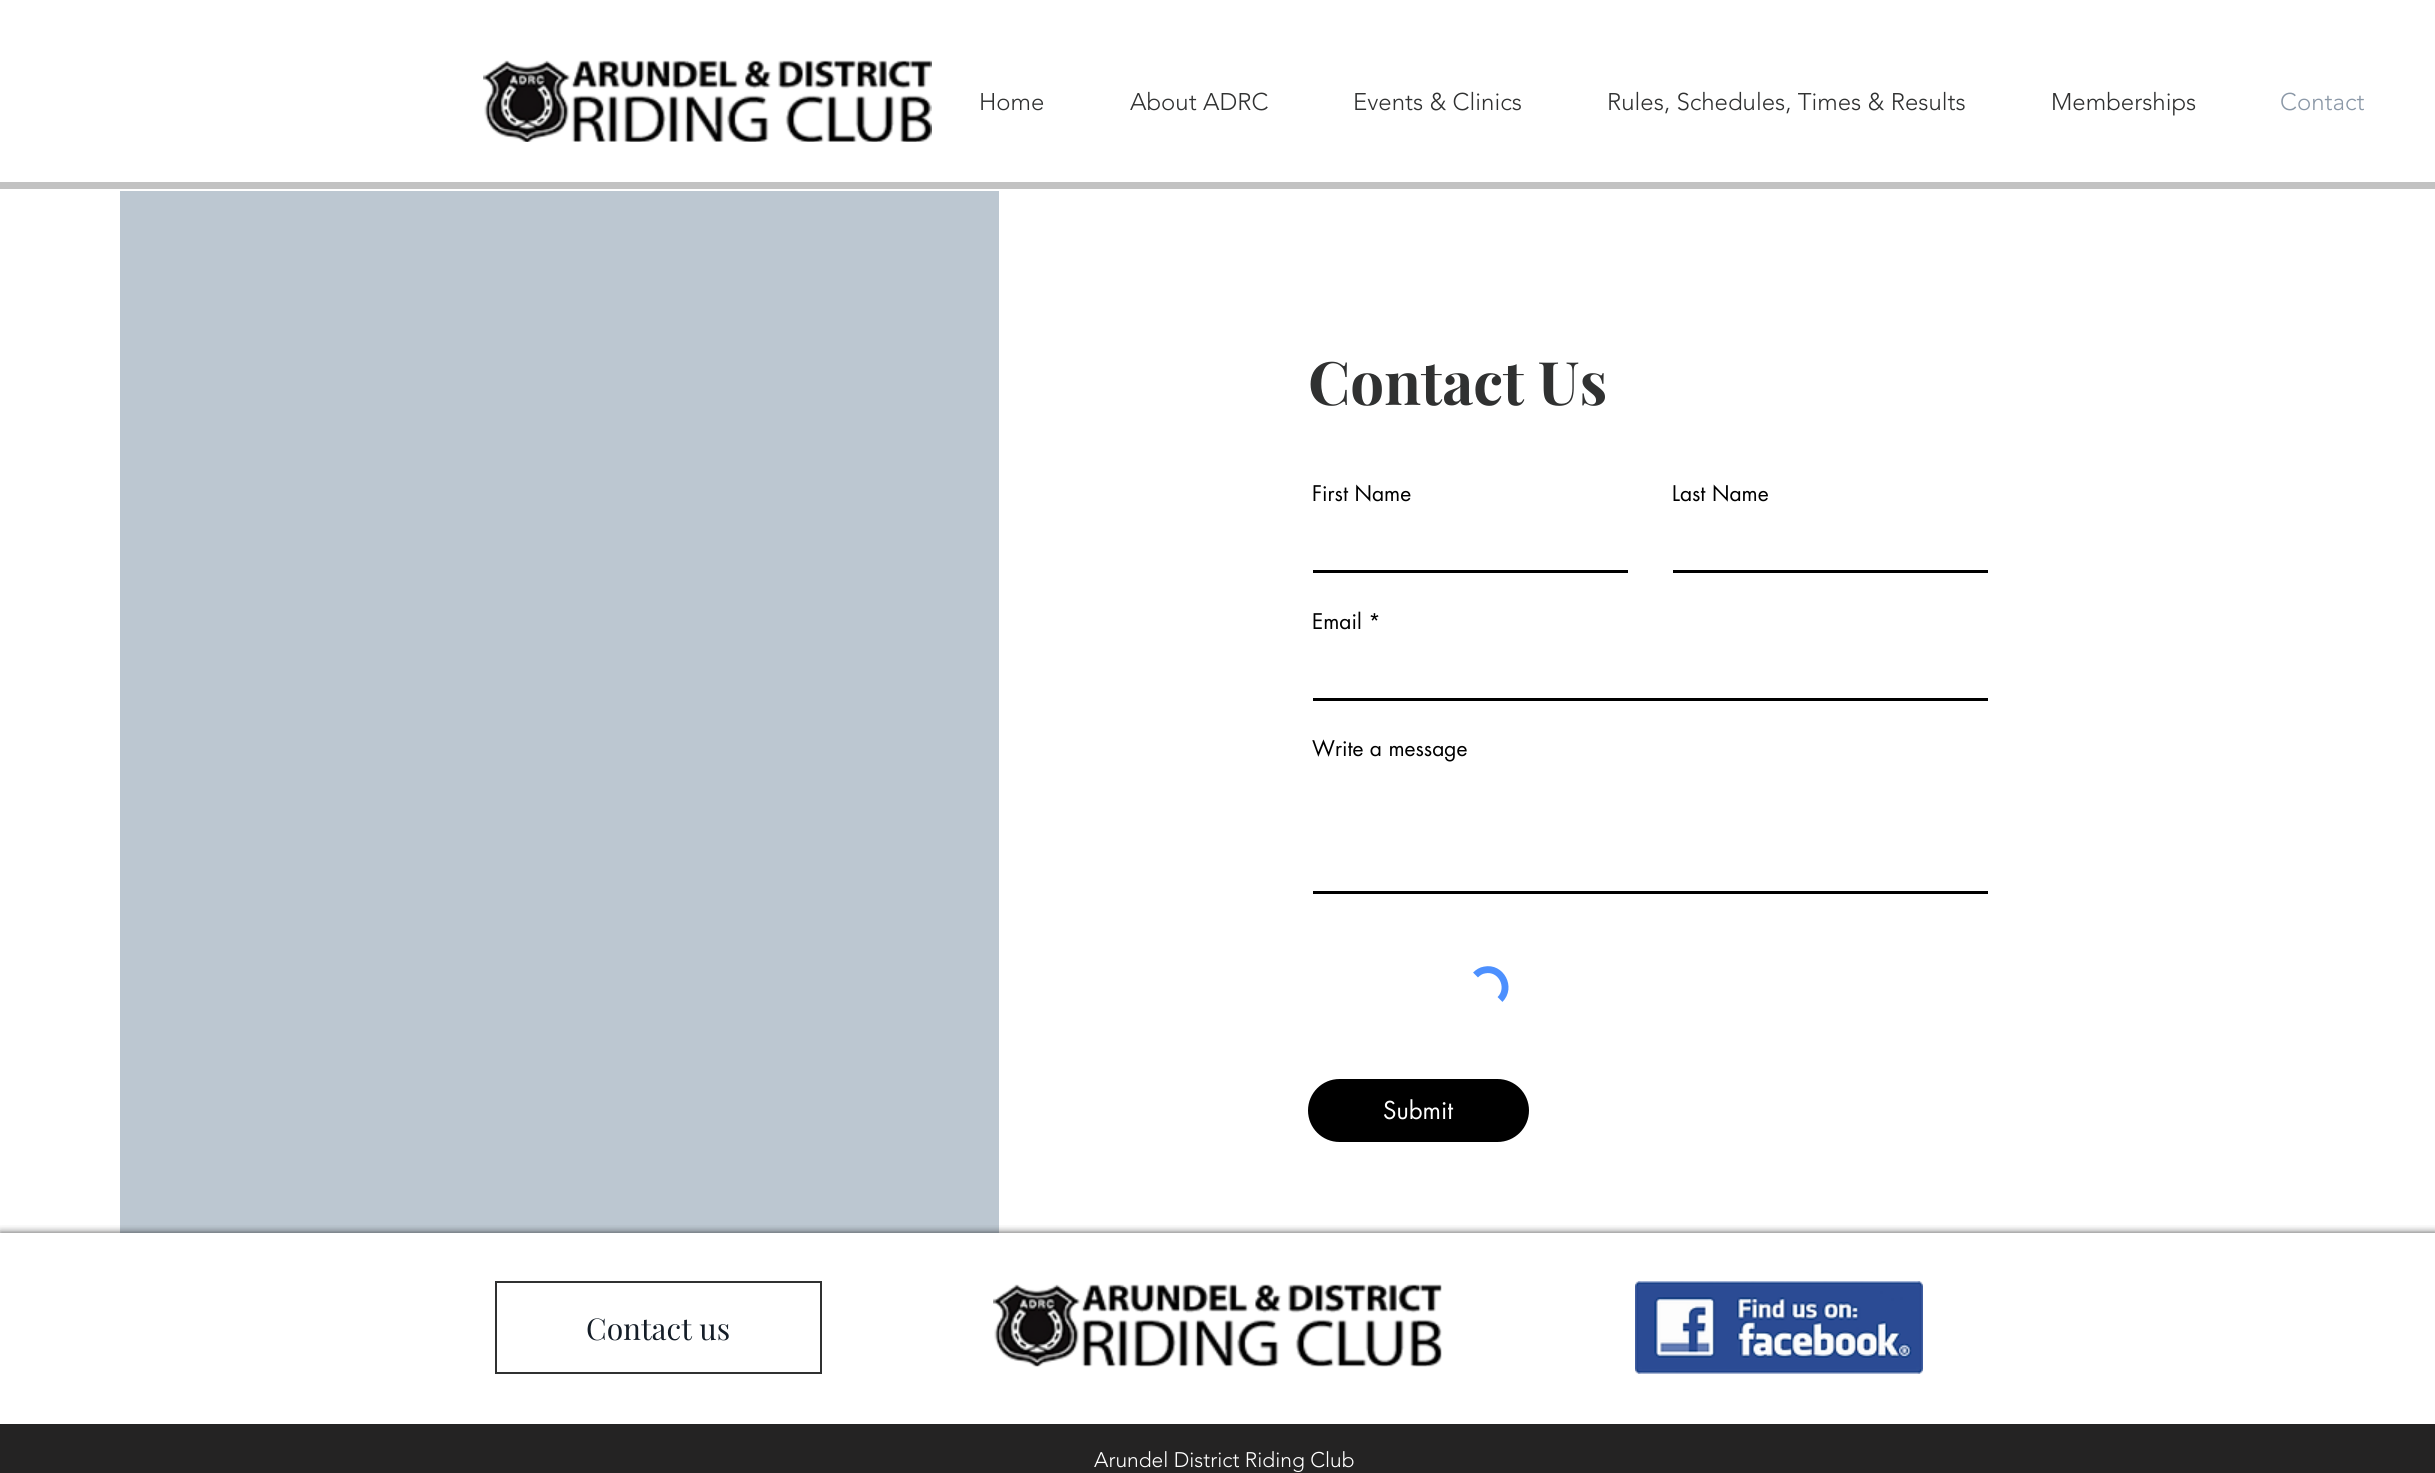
import math
import cairo


def use_color(cr, r, g, b):
  cr.set_source_rgb(r / 255, g / 255, b / 255)

def text(cr, x, y, s, family, size, color, bold=False, italic=False):
  cr.select_font_face(family, cairo.FONT_SLANT_ITALIC if italic else cairo.FONT_SLANT_NORMAL, cairo.FONT_WEIGHT_BOLD if bold else cairo.FONT_WEIGHT_NORMAL)
  cr.set_font_size(size)
  use_color(cr, *color)
  cr.move_to(x, y)
  cr.show_text(s)

def box(cr, x, y, w, h, *color):
  use_color(cr, *color)
  cr.rectangle(x, y, w, h)
  cr.fill()

def round_rect(cr, x, y, w, h, r):
  cr.new_sub_path()
  for i, (u, v) in enumerate([(x + w - r, y + h - r), (x + r, y + h - r), (x + r, y + r), (x + w - r, y + r)]):
    cr.arc(u, v, r, i * math.pi / 2, (i + 1) * math.pi / 2)
  cr.close_path()

def shadow(cr, x, y, w, h, r, blur, alpha):
  cr.push_group_with_content(cairo.CONTENT_ALPHA)
  cr.set_operator(cairo.OPERATOR_SOURCE)
  for i in range(15, -16, -2):
    e = blur * i / 6
    if min(w, h) + 2 * e > 0:
      cr.set_source_rgba(0, 0, 0, alpha * math.erfc((i - 1) / 8.5) / 2)
      round_rect(cr, x - e, y - e, w + 2 * e, h + 2 * e, max(0, min(r + e + blur * .6, min(w, h) / 2 + e)))
      cr.fill()
  cr.mask(cr.pop_group())

def picture(cr, path, x, y, w, h):
  cr.save()
  cr.set_source_surface(cairo.ImageSurface.create_from_png(path), x, y)
  cr.rectangle(x, y, w, h)
  cr.fill()
  cr.restore()

def draw(cr):
  use_color(cr, 255, 255, 255)
  cr.paint()
  picture(cr, "img_01.png", 483, 60, 449, 82)
  box(cr, 0, 182, 2435, 7, 194, 194, 194)
  box(cr, 120, 191, 879, 1042, 188, 199, 209)
  box(cr, 1313, 570, 315, 3, 0, 0, 0)
  box(cr, 1673, 570, 315, 3, 0, 0, 0)
  box(cr, 1313, 698, 675, 3, 0, 0, 0)
  box(cr, 1313, 891, 675, 3, 0, 0, 0)
  cr.new_path()
  cr.move_to(1475.5, 975)
  cr.curve_to(1478, 972.5, 1481, 970.5, 1484.5, 970)
  cr.curve_to(1501, 966.5, 1512, 987.5, 1500, 999.5)
  use_color(cr, 77, 144, 254)
  cr.set_line_width(6.9)
  cr.stroke()
  use_color(cr, 0, 0, 0)
  round_rect(cr, 1309.5, 1080.5, 218, 60, 30)
  cr.fill_preserve()
  cr.set_line_width(3)
  cr.stroke()
  cr.save()
  cr.rectangle(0, 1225, 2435, 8)
  cr.clip()
  use_color(cr, 0, 0, 0)
  shadow(cr, 0, 1233, 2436, 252, 0, 4, 0.7)
  cr.restore()
  cr.rectangle(496, 1282, 325, 91)
  use_color(cr, 48, 49, 49)
  cr.set_line_width(2)
  cr.stroke()
  picture(cr, "img_02.png", 993, 1284, 449, 83)
  picture(cr, "img_03.png", 1635, 1281, 288, 93)
  box(cr, 0, 1424, 2435, 49, 36, 35, 35)
  text(cr, 979, 110, "Home", "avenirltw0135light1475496 Light", 24, (48, 49, 49))
  text(cr, 1130, 110, "About ADRC", "avenirltw0135light1475496 Light", 24, (48, 49, 49))
  text(cr, 1353, 110, "Events & Clinics", "avenirltw0135light1475496 Light", 24, (48, 49, 49))
  text(cr, 1607, 110, "Rules, Schedules, Times & Results", "avenirltw0135light1475496 Light", 24, (48, 49, 49))
  text(cr, 2051, 110, "Memberships", "avenirltw0135light1475496 Light", 24, (48, 49, 49))
  text(cr, 2280, 110, "Contact", "avenirltw0135light1475496 Light", 24, (139, 152, 167))
  text(cr, 1308, 405, "Contact Us", "Playfair Display", 60, (48, 49, 49), bold=True)
  text(cr, 1312, 501, "First Name", "futura", 21, (0, 0, 0))
  text(cr, 1672, 501, "Last Name", "futura", 21, (0, 0, 0))
  text(cr, 1312, 629, "Email *", "futura", 21, (0, 0, 0))
  text(cr, 1312, 756, "Write a message", "futura", 21, (0, 0, 0))
  text(cr, 1383, 1119, "Submit", "futura", 24, (255, 255, 255))
  text(cr, 586, 1340, "Contact us", "Playfair Display", 30, (20, 29, 39))
  text(cr, 1094, 1467, "Arundel District Riding Club", "avenirltw0135light1475496 Light", 21, (255, 255, 255))


surface = cairo.ImageSurface(cairo.FORMAT_RGB24, 2435, 1473)
cr = cairo.Context(surface)
options = cairo.FontOptions()
options.set_hint_metrics(cairo.HINT_METRICS_OFF)
options.set_hint_style(cairo.HINT_STYLE_NONE)
cr.set_font_options(options)
cr.set_miter_limit(4)
draw(cr)
surface.write_to_png("out.png")
